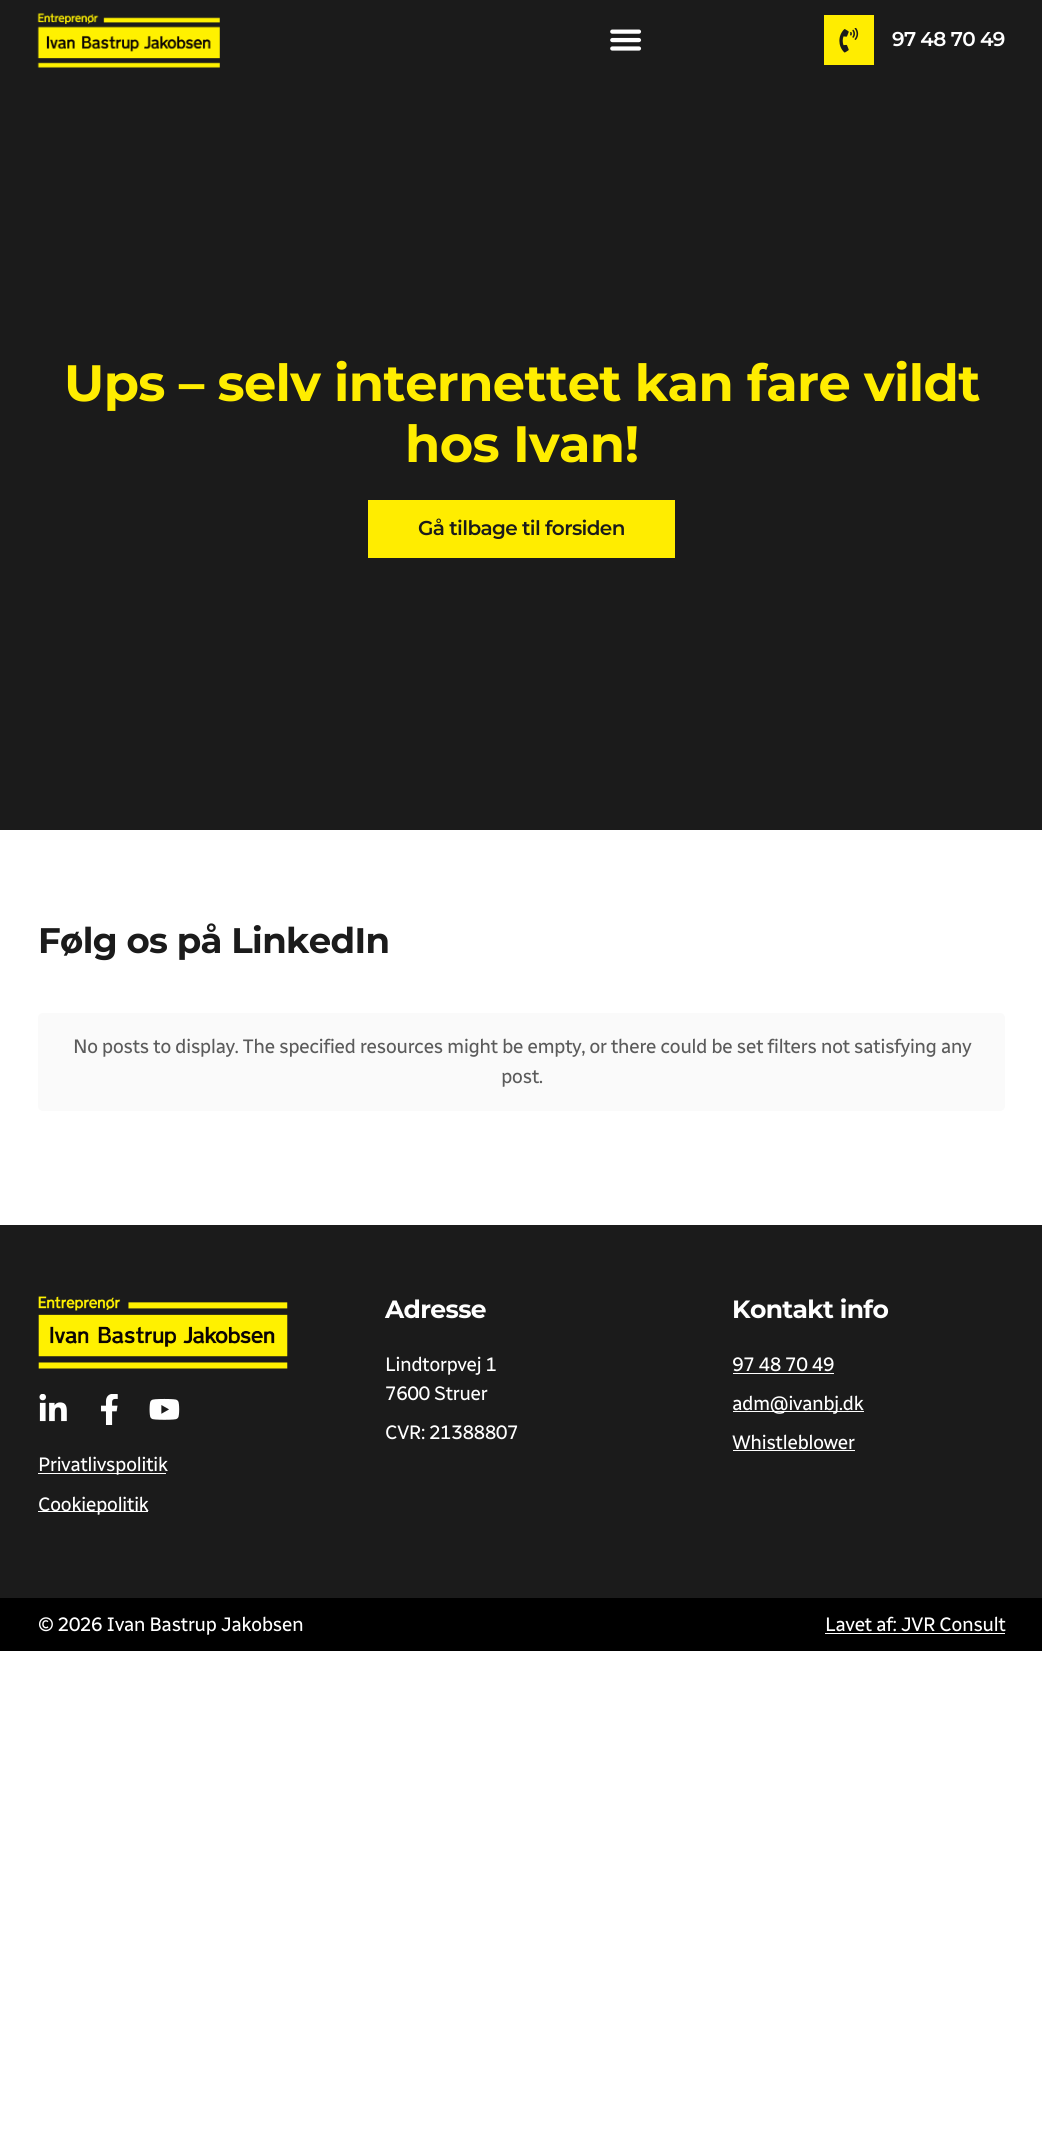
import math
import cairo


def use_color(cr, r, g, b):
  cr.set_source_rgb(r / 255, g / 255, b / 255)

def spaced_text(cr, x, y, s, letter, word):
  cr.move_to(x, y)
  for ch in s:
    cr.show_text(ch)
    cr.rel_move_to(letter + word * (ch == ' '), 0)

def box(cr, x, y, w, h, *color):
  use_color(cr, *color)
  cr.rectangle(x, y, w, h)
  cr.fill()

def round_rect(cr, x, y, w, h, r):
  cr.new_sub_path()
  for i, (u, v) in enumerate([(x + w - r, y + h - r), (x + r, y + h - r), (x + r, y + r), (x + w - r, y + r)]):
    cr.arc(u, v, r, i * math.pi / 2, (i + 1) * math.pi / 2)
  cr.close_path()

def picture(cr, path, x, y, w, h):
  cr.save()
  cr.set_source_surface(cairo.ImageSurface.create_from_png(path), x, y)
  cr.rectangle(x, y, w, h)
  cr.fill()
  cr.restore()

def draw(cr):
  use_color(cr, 255, 255, 255)
  cr.paint()
  box(cr, 0, 0, 1042, 830, 27, 27, 27)
  picture(cr, "img_01.png", 37, 13, 183, 55)
  picture(cr, "img_02.png", 610, 29, 32, 22)
  box(cr, 824, 15, 50, 50, 255, 237, 0)
  picture(cr, "img_03.png", 839, 28, 20, 25)
  box(cr, 368, 500, 307, 58, 255, 237, 0)
  use_color(cr, 250, 250, 250)
  round_rect(cr, 38, 1013, 967, 98, 5)
  cr.fill()
  box(cr, 0, 1225, 1042, 373, 27, 27, 27)
  box(cr, 733, 1373, 101, 1, 255, 255, 255)
  box(cr, 733, 1411, 131, 1, 255, 255, 255)
  box(cr, 733, 1450, 122, 1, 255, 255, 255)
  picture(cr, "img_04.png", 38, 1296, 250, 73)
  picture(cr, "img_05.png", 39, 1394, 28, 28)
  picture(cr, "img_06.png", 101, 1394, 17, 31)
  picture(cr, "img_07.png", 149, 1398, 31, 22)
  box(cr, 38, 1473, 128, 1, 255, 255, 255)
  box(cr, 38, 1511, 110, 1, 255, 255, 255)
  box(cr, 0, 1598, 1042, 53, 0, 0, 0)
  box(cr, 825, 1633, 180, 1, 255, 255, 255)
  cr.select_font_face("Montserrat SemiBold")
  cr.set_font_size(20)
  spaced_text(cr, 892, 46, "97 48 70 49", -0.62, 0)
  cr.select_font_face("Montserrat", cairo.FONT_SLANT_NORMAL, cairo.FONT_WEIGHT_BOLD)
  cr.set_font_size(51.1)
  use_color(cr, 255, 237, 0)
  spaced_text(cr, 64, 401, "Ups – selv internettet kan fare vildt", -0.62, 0)
  spaced_text(cr, 405, 462, "hos Ivan!", -0.62, 0)
  cr.select_font_face("Montserrat SemiBold")
  cr.set_font_size(20)
  use_color(cr, 27, 27, 27)
  spaced_text(cr, 418, 535, "Gå tilbage til forsiden", -0.62, 0)
  cr.select_font_face("Montserrat", cairo.FONT_SLANT_NORMAL, cairo.FONT_WEIGHT_BOLD)
  cr.set_font_size(35.5)
  spaced_text(cr, 38, 953, "Følg os på LinkedIn", -0.62, 0)
  cr.select_font_face("Radio Canada")
  cr.set_font_size(19.6)
  use_color(cr, 91, 91, 91)
  spaced_text(cr, 73, 1053, "No posts to display. The specified resources might be empty, or there could be set filters not satisfying any", -0.62, 0)
  spaced_text(cr, 501, 1083, "post.", -0.62, 0)
  cr.select_font_face("Montserrat", cairo.FONT_SLANT_NORMAL, cairo.FONT_WEIGHT_BOLD)
  cr.set_font_size(25)
  use_color(cr, 255, 255, 255)
  spaced_text(cr, 385, 1318, "Adresse", -0.62, 0)
  cr.select_font_face("Radio Canada")
  cr.set_font_size(19.6)
  spaced_text(cr, 385, 1371, "Lindtorpvej 1", -0.62, 0)
  spaced_text(cr, 385, 1400, "7600 Struer", -0.62, 0)
  spaced_text(cr, 385, 1439, "CVR: 21388807", -0.62, 0)
  cr.select_font_face("Montserrat", cairo.FONT_SLANT_NORMAL, cairo.FONT_WEIGHT_BOLD)
  cr.set_font_size(25)
  spaced_text(cr, 732, 1318, "Kontakt info", -0.62, 0)
  cr.select_font_face("Radio Canada")
  cr.set_font_size(19.6)
  spaced_text(cr, 732, 1371, "97 48 70 49", -0.62, 0)
  spaced_text(cr, 732, 1410, "adm@ivanbj.dk", -0.62, 0)
  spaced_text(cr, 732, 1449, "Whistleblower", -0.62, 0)
  spaced_text(cr, 38, 1471, "Privatlivspolitik", -0.62, 0)
  spaced_text(cr, 38, 1511, "Cookiepolitik", -0.62, 0)
  spaced_text(cr, 38, 1631, "© 2026 Ivan Bastrup Jakobsen", -0.62, 0)
  spaced_text(cr, 825, 1631, "Lavet af: JVR Consult", -0.62, 0)


surface = cairo.ImageSurface(cairo.FORMAT_RGB24, 1042, 2154)
cr = cairo.Context(surface)
options = cairo.FontOptions()
options.set_hint_metrics(cairo.HINT_METRICS_OFF)
options.set_hint_style(cairo.HINT_STYLE_NONE)
cr.set_font_options(options)
cr.set_miter_limit(4)
draw(cr)
surface.write_to_png("out.png")
